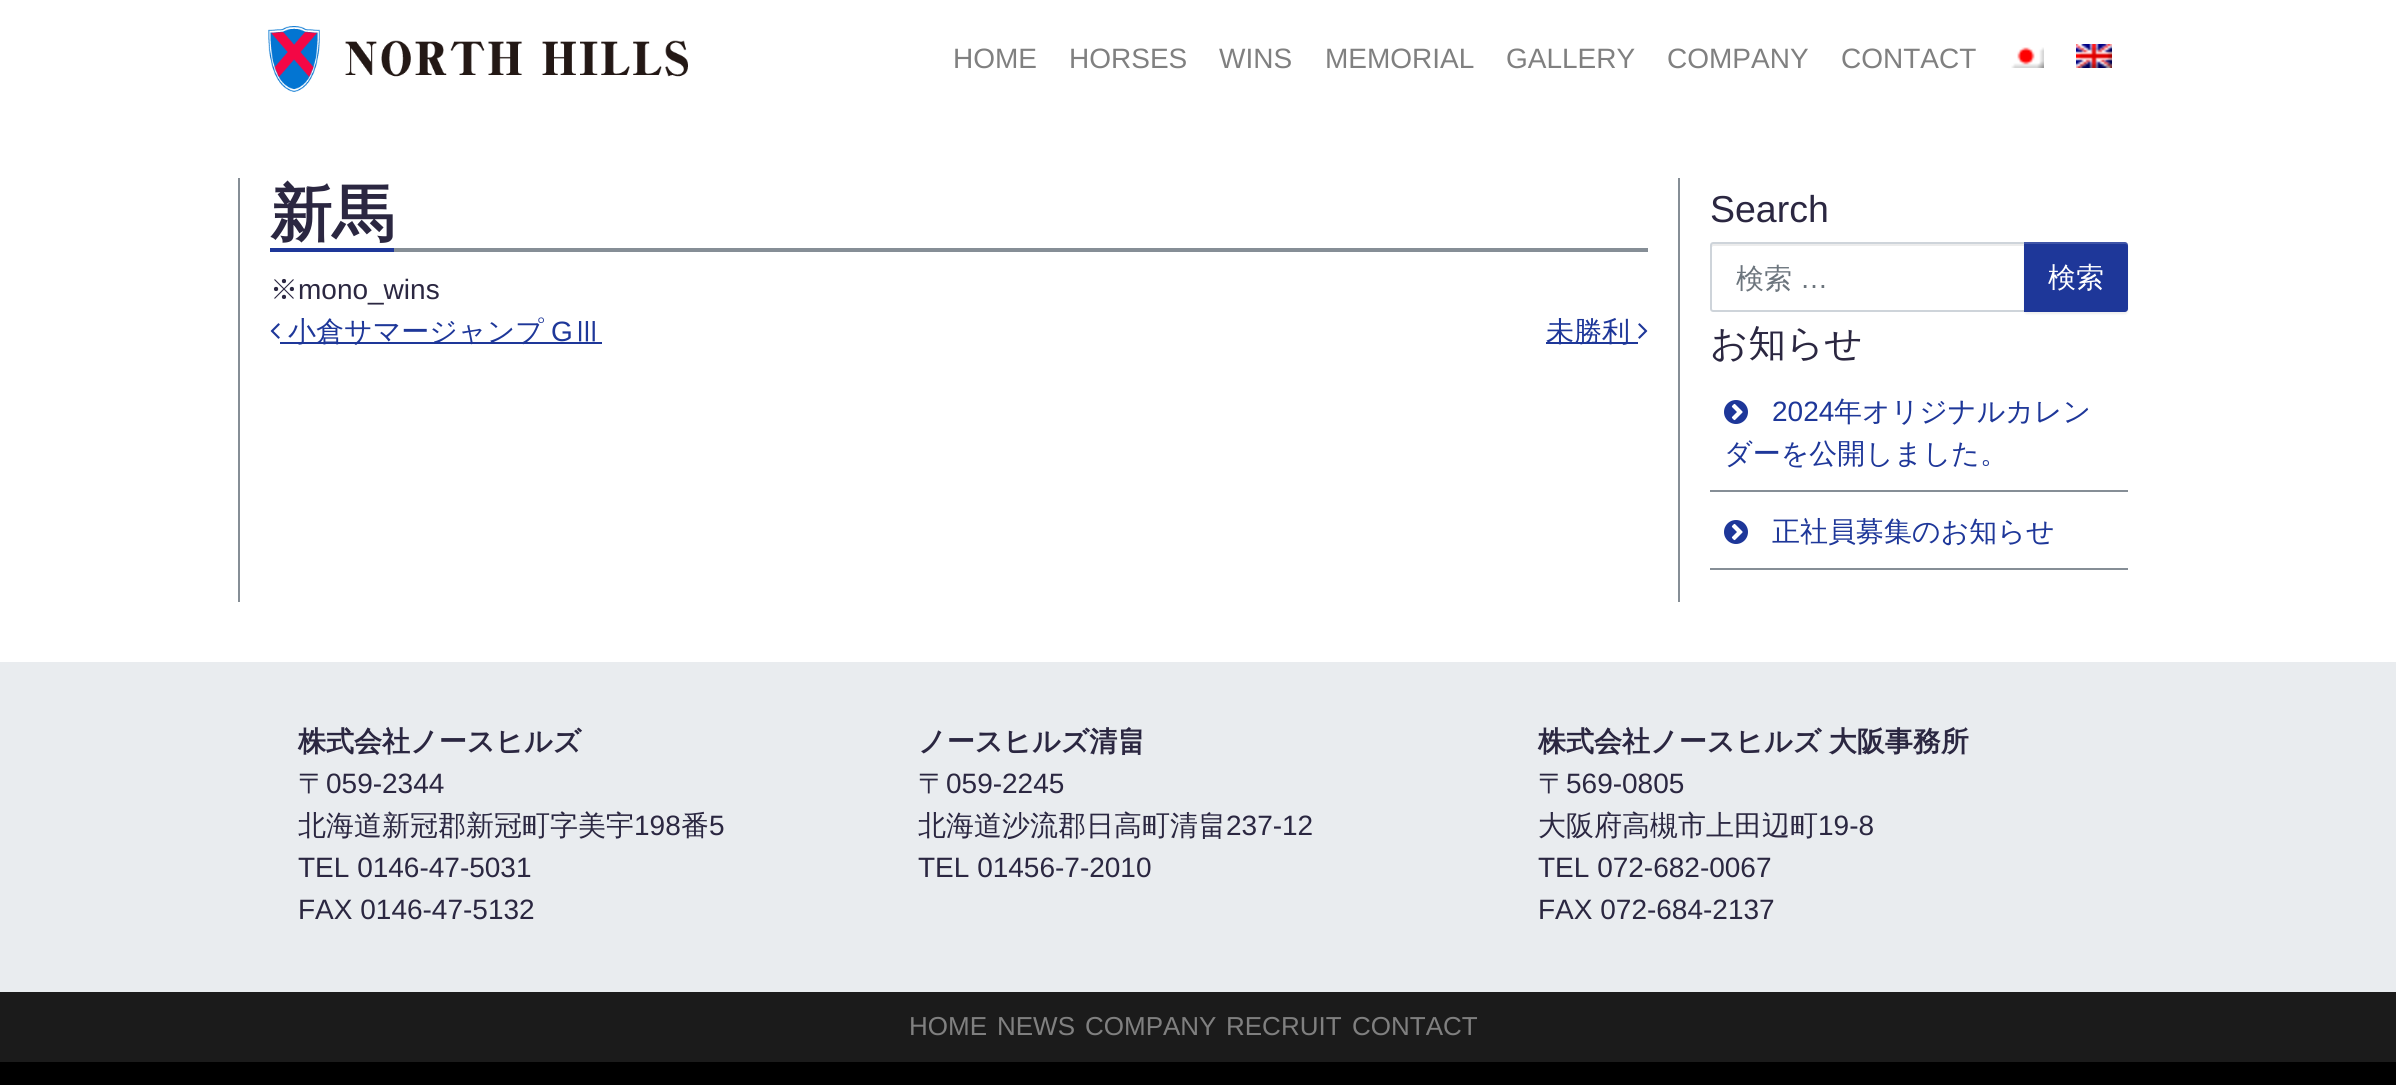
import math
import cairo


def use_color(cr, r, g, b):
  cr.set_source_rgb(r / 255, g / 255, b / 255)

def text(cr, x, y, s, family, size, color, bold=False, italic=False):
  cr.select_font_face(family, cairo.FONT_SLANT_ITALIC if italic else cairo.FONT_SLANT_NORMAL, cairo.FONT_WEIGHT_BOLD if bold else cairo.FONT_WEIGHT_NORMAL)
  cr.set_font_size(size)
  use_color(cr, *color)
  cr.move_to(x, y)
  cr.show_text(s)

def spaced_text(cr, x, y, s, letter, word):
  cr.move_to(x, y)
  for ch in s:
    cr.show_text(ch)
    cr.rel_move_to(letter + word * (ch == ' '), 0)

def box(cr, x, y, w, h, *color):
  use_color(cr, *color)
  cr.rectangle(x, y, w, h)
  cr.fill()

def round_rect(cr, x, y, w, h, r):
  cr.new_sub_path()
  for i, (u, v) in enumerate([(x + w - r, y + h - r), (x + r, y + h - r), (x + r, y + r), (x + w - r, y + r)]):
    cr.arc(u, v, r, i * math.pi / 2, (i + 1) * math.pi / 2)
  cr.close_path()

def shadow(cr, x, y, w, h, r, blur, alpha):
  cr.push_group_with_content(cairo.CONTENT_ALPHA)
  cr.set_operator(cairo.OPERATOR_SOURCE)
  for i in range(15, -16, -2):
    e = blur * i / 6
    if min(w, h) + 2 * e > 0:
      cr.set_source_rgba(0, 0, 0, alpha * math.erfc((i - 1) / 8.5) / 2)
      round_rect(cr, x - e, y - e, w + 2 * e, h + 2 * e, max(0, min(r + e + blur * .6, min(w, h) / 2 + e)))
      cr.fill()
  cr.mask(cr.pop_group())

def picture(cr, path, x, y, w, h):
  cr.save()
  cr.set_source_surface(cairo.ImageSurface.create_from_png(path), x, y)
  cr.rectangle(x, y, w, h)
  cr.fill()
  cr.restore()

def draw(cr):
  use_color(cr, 255, 255, 255)
  cr.paint()
  picture(cr, "img_01.png", 268, 26, 420, 66)
  picture(cr, "img_02.png", 2011, 47, 33, 21)
  picture(cr, "img_03.png", 2076, 44, 36, 24)
  box(cr, 238, 178, 2, 424, 134, 142, 150)
  box(cr, 270, 248, 124, 4, 30, 55, 153)
  box(cr, 394, 248, 1254, 4, 134, 142, 150)
  picture(cr, "img_04.png", 270, 323, 10, 16)
  box(cr, 280, 342, 322, 2, 30, 55, 153)
  box(cr, 1546, 342, 92, 2, 30, 55, 153)
  picture(cr, "img_05.png", 1638, 323, 10, 16)
  box(cr, 1678, 178, 2, 424, 134, 142, 150)
  use_color(cr, 236, 236, 236)
  cr.new_path()
  cr.move_to(1713, 246)
  cr.line_to(2024, 246)
  cr.line_to(2024, 244)
  cr.line_to(1712, 244)
  cr.line_to(1712, 247)
  cr.close_path()
  cr.fill()
  cr.new_path()
  cr.move_to(1713, 243)
  cr.line_to(2025, 243)
  cr.line_to(2025, 311)
  cr.line_to(1713, 311)
  cr.curve_to(1712, 311, 1711, 310, 1711, 309)
  cr.line_to(1711, 245)
  cr.curve_to(1711, 244, 1712, 243, 1713, 243)
  cr.close_path()
  use_color(cr, 206, 212, 218)
  cr.stroke()
  use_color(cr, 0, 0, 0)
  shadow(cr, 2024, 244, 104, 70, 3, 1, 0.07)
  use_color(cr, 30, 55, 153)
  cr.new_path()
  cr.move_to(2024, 242)
  cr.line_to(2125, 242)
  cr.curve_to(2126.5, 242, 2128, 243.5, 2128, 245)
  cr.line_to(2128, 309)
  cr.curve_to(2128, 310.5, 2126.5, 312, 2125, 312)
  cr.line_to(2024, 312)
  cr.close_path()
  cr.fill()
  cr.set_source_rgba(1, 1, 1, 0.15)
  cr.new_path()
  cr.move_to(2024, 244)
  cr.line_to(2125, 244)
  cr.curve_to(2127, 244, 2128, 245, 2128, 247)
  cr.line_to(2128, 245)
  cr.curve_to(2128, 243, 2127, 242, 2125, 242)
  cr.line_to(2024, 242)
  cr.close_path()
  cr.fill()
  box(cr, 1710, 490, 418, 2, 134, 142, 150)
  picture(cr, "img_06.png", 1724, 400, 24, 24)
  box(cr, 1710, 568, 418, 2, 134, 142, 150)
  picture(cr, "img_06.png", 1724, 520, 24, 24)
  box(cr, 0, 662, 2396, 330, 233, 236, 239)
  box(cr, 0, 992, 2396, 70, 27, 27, 27)
  box(cr, 0, 1062, 2396, 23, 0, 0, 0)
  text(cr, 953, 68, "HOME", "Liberation Sans", 28, (128, 128, 128))
  text(cr, 1069, 68, "HORSES", "Liberation Sans", 28, (128, 128, 128))
  text(cr, 1219, 68, "WINS", "Liberation Sans", 28, (128, 128, 128))
  text(cr, 1325, 68, "MEMORIAL", "Liberation Sans", 28, (128, 128, 128))
  text(cr, 1506, 68, "GALLERY", "Liberation Sans", 28, (128, 128, 128))
  text(cr, 1667, 68, "COMPANY", "Liberation Sans", 28, (128, 128, 128))
  text(cr, 1841, 68, "CONTACT", "Liberation Sans", 28, (128, 128, 128))
  text(cr, 270, 235, "新馬", "WenQuanYi Zen Hei", 62, (43, 39, 65), bold=True)
  text(cr, 270, 299, "※", "WenQuanYi Zen Hei Medium", 28, (43, 39, 65))
  text(cr, 298, 299, "mono_wins", "Liberation Sans", 28, (43, 39, 65))
  text(cr, 288, 341, "小倉サマージャンプ", "WenQuanYi Zen Hei Medium", 28, (30, 55, 153))
  text(cr, 551, 341, "G", "Liberation Sans", 28, (30, 55, 153))
  text(cr, 573, 341, "Ⅲ", "WenQuanYi Zen Hei Medium", 28, (30, 55, 153))
  text(cr, 1546, 341, "未勝利", "WenQuanYi Zen Hei Medium", 28, (30, 55, 153))
  text(cr, 1710, 222, "Search", "Liberation Sans", 37.5, (43, 39, 65))
  text(cr, 1736, 288, "検索", "WenQuanYi Zen Hei Medium", 28, (108, 117, 125))
  text(cr, 1800, 288, "…", "Liberation Sans", 28, (108, 117, 125))
  text(cr, 2048, 287, "検索", "WenQuanYi Zen Hei Medium", 28, (255, 255, 255))
  text(cr, 1710, 356, "お知らせ", "WenQuanYi Zen Hei Medium", 37.5, (43, 39, 65))
  text(cr, 1772, 421, "2024", "Liberation Sans", 28, (30, 55, 153))
  text(cr, 1834, 421, "年オリジナルカレン", "WenQuanYi Zen Hei Medium", 28, (30, 55, 153))
  text(cr, 1724, 463, "ダーを公開しました。", "WenQuanYi Zen Hei Medium", 28, (30, 55, 153))
  text(cr, 1772, 541, "正社員募集のお知らせ", "WenQuanYi Zen Hei Medium", 28, (30, 55, 153))
  text(cr, 298, 751, "株式会社ノースヒルズ", "WenQuanYi Zen Hei", 28, (43, 39, 65), bold=True)
  text(cr, 298, 793, "〒", "WenQuanYi Zen Hei Medium", 28, (43, 39, 65))
  text(cr, 326, 793, "059-2344", "Liberation Sans", 28, (43, 39, 65))
  text(cr, 298, 835, "北海道新冠郡新冠町字美宇", "WenQuanYi Zen Hei Medium", 28, (43, 39, 65))
  text(cr, 634, 835, "198", "Liberation Sans", 28, (43, 39, 65))
  text(cr, 681, 835, "番", "WenQuanYi Zen Hei Medium", 28, (43, 39, 65))
  text(cr, 709, 835, "5", "Liberation Sans", 28, (43, 39, 65))
  text(cr, 298, 877, "TEL 0146-47-5031", "Liberation Sans", 28, (43, 39, 65))
  text(cr, 298, 919, "FAX 0146-47-5132", "Liberation Sans", 28, (43, 39, 65))
  text(cr, 918, 751, "ノースヒルズ清畠", "WenQuanYi Zen Hei", 28, (43, 39, 65), bold=True)
  text(cr, 918, 793, "〒", "WenQuanYi Zen Hei Medium", 28, (43, 39, 65))
  text(cr, 946, 793, "059-2245", "Liberation Sans", 28, (43, 39, 65))
  text(cr, 918, 835, "北海道沙流郡日高町清畠", "WenQuanYi Zen Hei Medium", 28, (43, 39, 65))
  text(cr, 1226, 835, "237-12", "Liberation Sans", 28, (43, 39, 65))
  text(cr, 918, 877, "TEL 01456-7-2010", "Liberation Sans", 28, (43, 39, 65))
  cr.select_font_face("WenQuanYi Zen Hei", cairo.FONT_SLANT_NORMAL, cairo.FONT_WEIGHT_BOLD)
  spaced_text(cr, 1538, 751, "株式会社ノースヒルズ 大阪事務所", 0, -1)
  text(cr, 1538, 793, "〒", "WenQuanYi Zen Hei Medium", 28, (43, 39, 65))
  text(cr, 1566, 793, "569-0805", "Liberation Sans", 28, (43, 39, 65))
  text(cr, 1538, 835, "大阪府高槻市上田辺町", "WenQuanYi Zen Hei Medium", 28, (43, 39, 65))
  text(cr, 1818, 835, "19-8", "Liberation Sans", 28, (43, 39, 65))
  text(cr, 1538, 877, "TEL 072-682-0067", "Liberation Sans", 28, (43, 39, 65))
  text(cr, 1538, 919, "FAX 072-684-2137", "Liberation Sans", 28, (43, 39, 65))
  text(cr, 909, 1035, "HOME", "Liberation Sans", 26, (128, 128, 128))
  text(cr, 997, 1035, "NEWS", "Liberation Sans", 26, (128, 128, 128))
  text(cr, 1085, 1035, "COMPANY", "Liberation Sans", 26, (128, 128, 128))
  text(cr, 1226, 1035, "RECRUIT", "Liberation Sans", 26, (128, 128, 128))
  text(cr, 1352, 1035, "CONTACT", "Liberation Sans", 26, (128, 128, 128))


surface = cairo.ImageSurface(cairo.FORMAT_RGB24, 2396, 1085)
cr = cairo.Context(surface)
options = cairo.FontOptions()
options.set_hint_metrics(cairo.HINT_METRICS_OFF)
options.set_hint_style(cairo.HINT_STYLE_NONE)
cr.set_font_options(options)
cr.set_miter_limit(4)
draw(cr)
surface.write_to_png("out.png")
